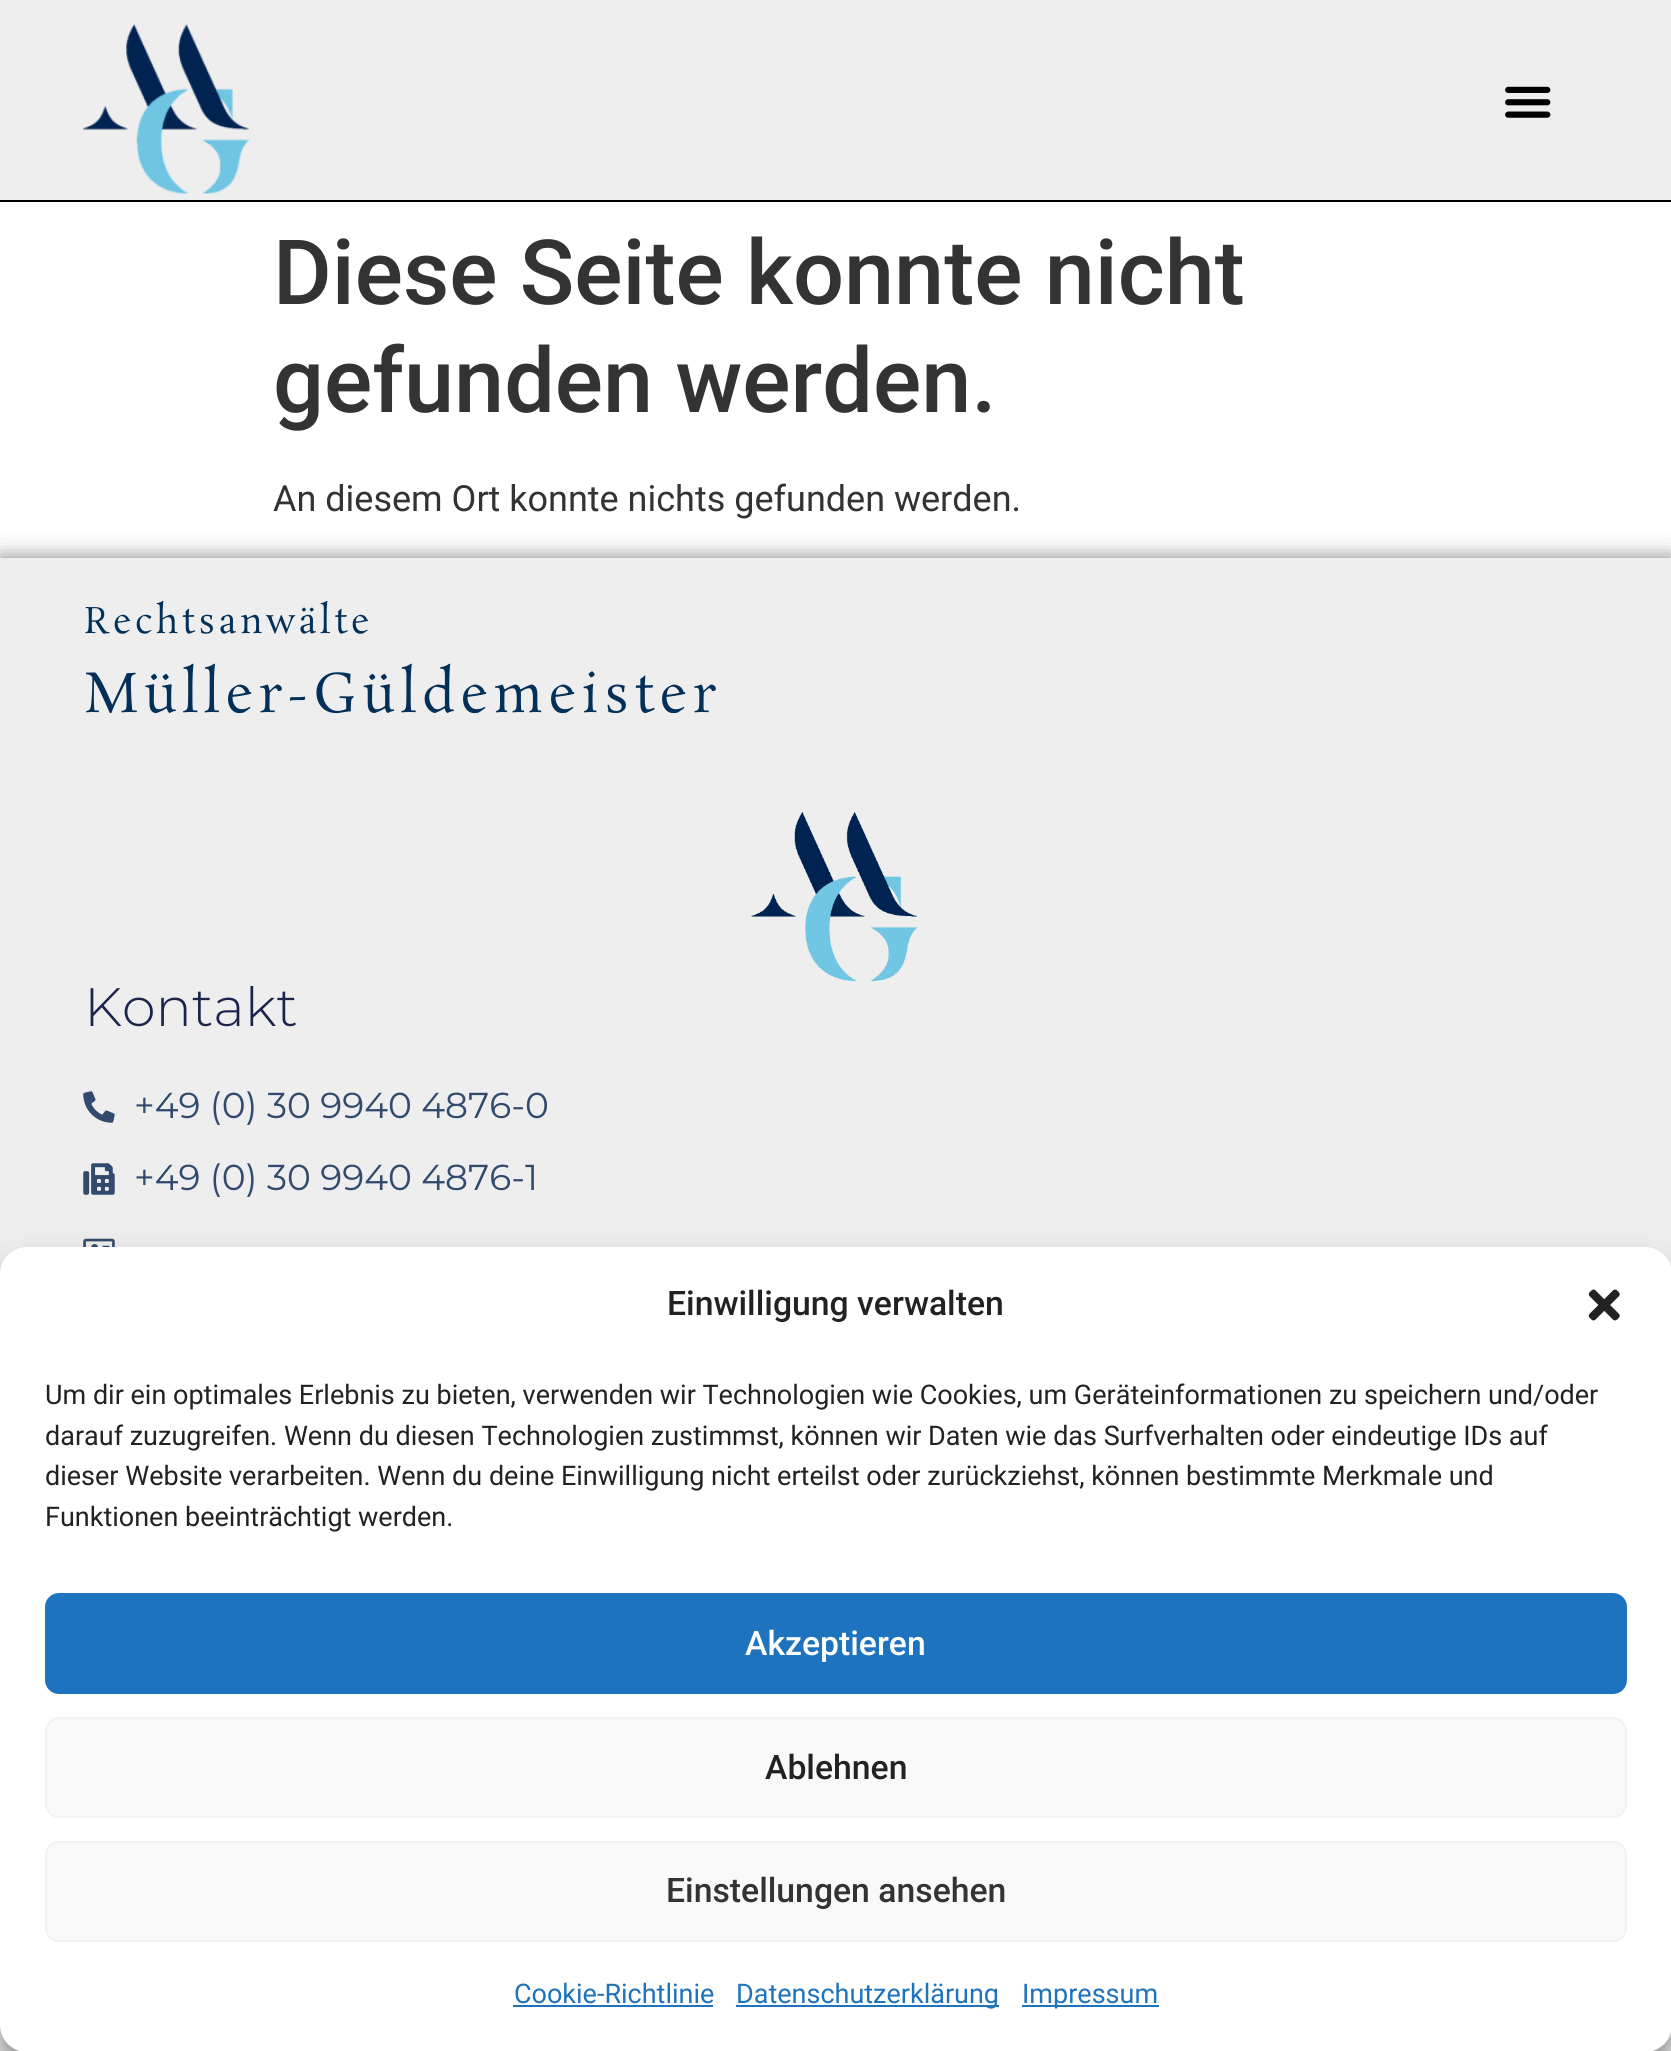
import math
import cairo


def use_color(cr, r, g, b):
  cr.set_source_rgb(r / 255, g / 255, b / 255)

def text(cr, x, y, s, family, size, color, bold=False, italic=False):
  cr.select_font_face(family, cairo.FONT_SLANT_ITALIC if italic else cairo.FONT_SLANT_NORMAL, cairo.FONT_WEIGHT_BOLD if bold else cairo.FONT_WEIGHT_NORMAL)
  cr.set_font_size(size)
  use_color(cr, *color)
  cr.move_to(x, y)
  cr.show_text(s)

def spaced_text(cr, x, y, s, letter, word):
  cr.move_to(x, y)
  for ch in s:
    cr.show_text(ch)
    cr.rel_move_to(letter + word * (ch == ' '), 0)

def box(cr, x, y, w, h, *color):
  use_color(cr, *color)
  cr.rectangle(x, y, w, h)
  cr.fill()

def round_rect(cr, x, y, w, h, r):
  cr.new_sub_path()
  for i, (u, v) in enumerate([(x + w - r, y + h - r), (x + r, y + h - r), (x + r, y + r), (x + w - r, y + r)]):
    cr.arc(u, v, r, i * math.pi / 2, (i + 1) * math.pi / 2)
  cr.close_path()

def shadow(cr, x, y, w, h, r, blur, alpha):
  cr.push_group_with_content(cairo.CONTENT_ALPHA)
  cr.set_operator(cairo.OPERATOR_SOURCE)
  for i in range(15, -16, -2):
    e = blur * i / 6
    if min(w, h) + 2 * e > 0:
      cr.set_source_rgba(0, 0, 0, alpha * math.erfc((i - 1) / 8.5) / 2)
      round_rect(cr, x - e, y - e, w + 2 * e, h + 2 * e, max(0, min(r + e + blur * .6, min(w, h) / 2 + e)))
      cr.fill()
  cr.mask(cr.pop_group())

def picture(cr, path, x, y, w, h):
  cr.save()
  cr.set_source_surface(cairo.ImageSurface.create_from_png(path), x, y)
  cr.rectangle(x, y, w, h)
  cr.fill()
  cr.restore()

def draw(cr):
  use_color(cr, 255, 255, 255)
  cr.paint()
  box(cr, 0, 0, 1671, 200, 238, 238, 238)
  box(cr, 0, 200, 1671, 2, 0, 0, 0)
  picture(cr, "img_01.png", 83, 24, 167, 170)
  picture(cr, "img_02.png", 1505, 86, 46, 32)
  use_color(cr, 0, 0, 0)
  shadow(cr, 0, 558, 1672, 187, 0, 11, 0.5)
  box(cr, 0, 558, 1671, 1493, 238, 238, 238)
  picture(cr, "img_03.png", 751, 812, 167, 169)
  picture(cr, "img_04.png", 83, 1091, 32, 32)
  picture(cr, "img_05.png", 83, 1163, 32, 32)
  picture(cr, "img_06.png", 83, 1238, 32, 9)
  use_color(cr, 0, 0, 0)
  shadow(cr, 0, 1260, 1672, 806, 27, 7, 0.23)
  shadow(cr, 0, 1269, 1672, 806, 27, 22.5, 0.19)
  use_color(cr, 255, 255, 255)
  round_rect(cr, 0, 1247, 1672, 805, 27)
  cr.fill()
  picture(cr, "img_07.png", 1588, 1289, 32, 32)
  use_color(cr, 30, 115, 190)
  round_rect(cr, 46, 1594, 1580, 99, 13)
  cr.fill_preserve()
  cr.stroke()
  use_color(cr, 249, 249, 249)
  round_rect(cr, 46, 1718, 1580, 99, 13)
  cr.fill_preserve()
  use_color(cr, 242, 242, 242)
  cr.stroke()
  use_color(cr, 249, 249, 249)
  round_rect(cr, 46, 1842, 1580, 99, 13)
  cr.fill_preserve()
  use_color(cr, 242, 242, 242)
  cr.stroke()
  box(cr, 513, 2005, 200, 2, 30, 115, 190)
  box(cr, 736, 2005, 263, 2, 30, 115, 190)
  box(cr, 1022, 2005, 137, 2, 30, 115, 190)
  text(cr, 273, 304, "Diese Seite konnte nicht", "Roboto Medium", 90, (51, 51, 51))
  text(cr, 273, 412, "gefunden werden.", "Roboto Medium", 90, (51, 51, 51))
  text(cr, 273, 511, "An diesem Ort konnte nichts gefunden werden.", "Roboto", 36, (51, 51, 51))
  cr.select_font_face("Rosarivo")
  use_color(cr, 2, 48, 89)
  spaced_text(cr, 84, 633, "Rechtsanwälte", 3.6, 0)
  cr.set_font_size(54)
  spaced_text(cr, 84, 712, "Müller-Güldemeister", 5.4, 0)
  text(cr, 84, 1026, "Kontakt", "Montserrat Light", 54, (28, 36, 75))
  text(cr, 134, 1118, "+49 (0) 30 9940 4876-0", "Montserrat", 36, (50, 74, 109))
  text(cr, 134, 1190, "+49 (0) 30 9940 4876-1", "Montserrat", 36, (50, 74, 109))
  text(cr, 667, 1315, "Einwilligung verwalten", "Roboto Medium", 33.75, (34, 34, 34))
  text(cr, 45, 1404, "Um dir ein optimales Erlebnis zu bieten, verwenden wir Technologien wie Cookies, um Geräteinformationen zu speichern und/oder", "Roboto", 27, (34, 34, 34))
  text(cr, 45, 1445, "darauf zuzugreifen. Wenn du diesen Technologien zustimmst, können wir Daten wie das Surfverhalten oder eindeutige IDs auf", "Roboto", 27, (34, 34, 34))
  text(cr, 45, 1485, "dieser Website verarbeiten. Wenn du deine Einwilligung nicht erteilst oder zurückziehst, können bestimmte Merkmale und", "Roboto", 27, (34, 34, 34))
  text(cr, 45, 1526, "Funktionen beeinträchtigt werden.", "Roboto", 27, (34, 34, 34))
  text(cr, 745, 1655, "Akzeptieren", "Roboto Medium", 33.75, (255, 255, 255))
  text(cr, 765, 1779, "Ablehnen", "Roboto Medium", 33.75, (34, 34, 34))
  text(cr, 666, 1902, "Einstellungen ansehen", "Roboto Medium", 33.75, (51, 51, 51))
  text(cr, 514, 2003, "Cookie-Richtlinie", "Roboto", 27, (30, 115, 190))
  text(cr, 736, 2003, "Datenschutzerklärung", "Roboto", 27, (30, 115, 190))
  text(cr, 1022, 2003, "Impressum", "Roboto", 27, (30, 115, 190))


surface = cairo.ImageSurface(cairo.FORMAT_RGB24, 1671, 2051)
cr = cairo.Context(surface)
options = cairo.FontOptions()
options.set_hint_metrics(cairo.HINT_METRICS_OFF)
options.set_hint_style(cairo.HINT_STYLE_NONE)
cr.set_font_options(options)
cr.set_miter_limit(4)
draw(cr)
surface.write_to_png("out.png")
